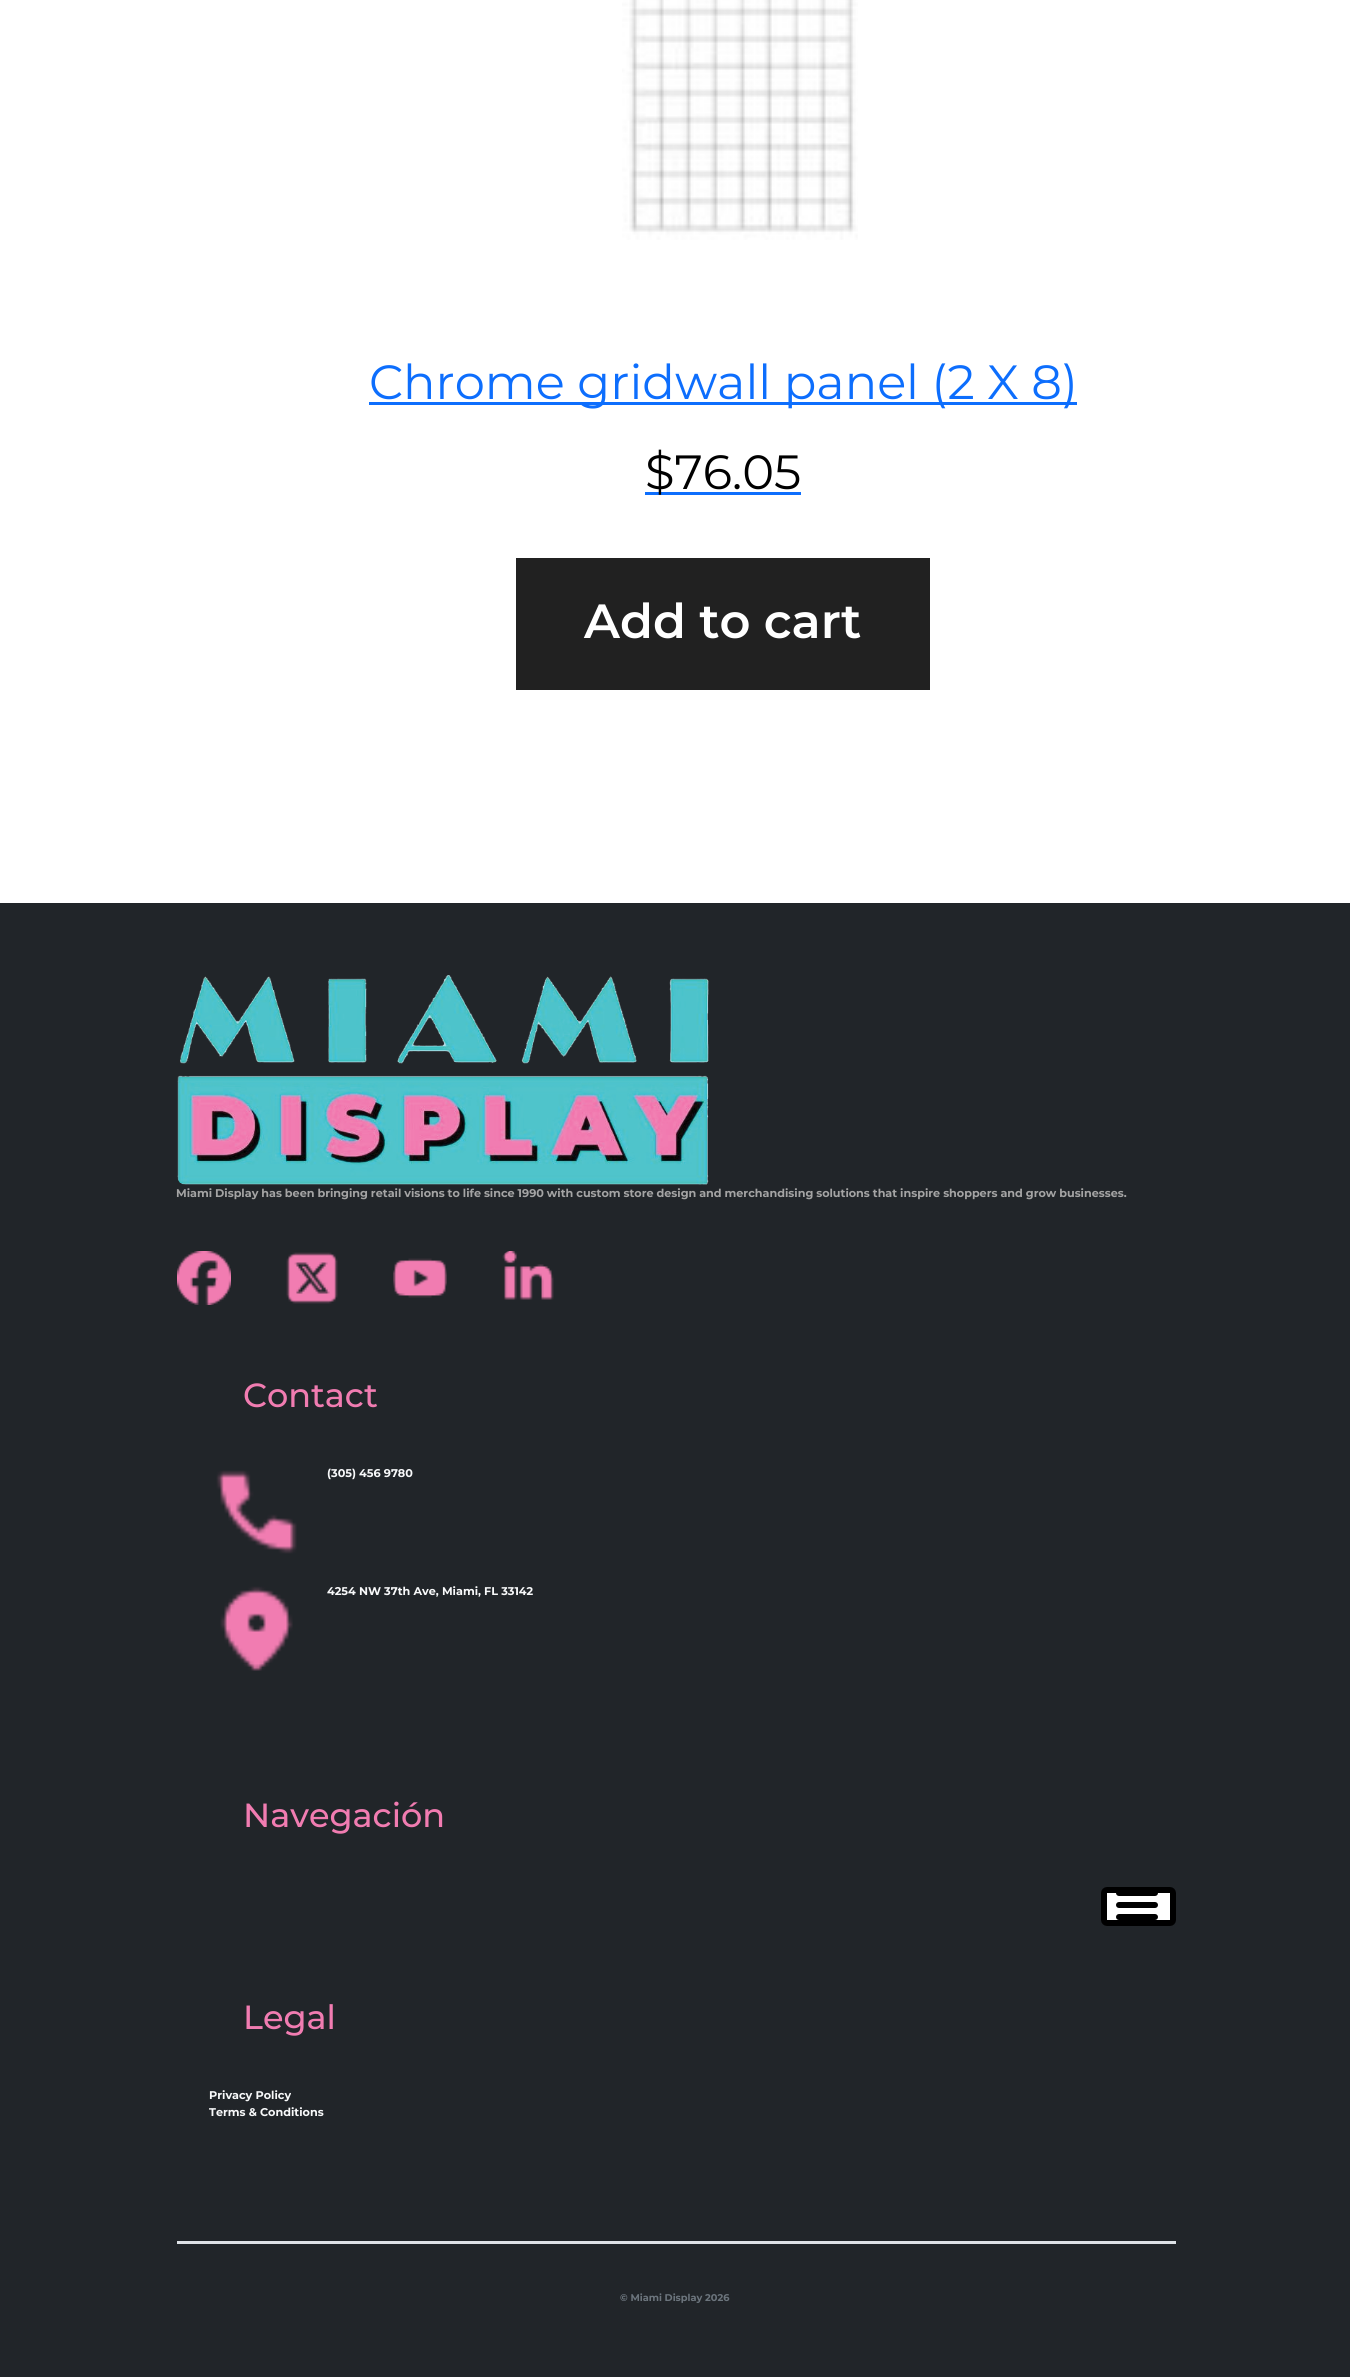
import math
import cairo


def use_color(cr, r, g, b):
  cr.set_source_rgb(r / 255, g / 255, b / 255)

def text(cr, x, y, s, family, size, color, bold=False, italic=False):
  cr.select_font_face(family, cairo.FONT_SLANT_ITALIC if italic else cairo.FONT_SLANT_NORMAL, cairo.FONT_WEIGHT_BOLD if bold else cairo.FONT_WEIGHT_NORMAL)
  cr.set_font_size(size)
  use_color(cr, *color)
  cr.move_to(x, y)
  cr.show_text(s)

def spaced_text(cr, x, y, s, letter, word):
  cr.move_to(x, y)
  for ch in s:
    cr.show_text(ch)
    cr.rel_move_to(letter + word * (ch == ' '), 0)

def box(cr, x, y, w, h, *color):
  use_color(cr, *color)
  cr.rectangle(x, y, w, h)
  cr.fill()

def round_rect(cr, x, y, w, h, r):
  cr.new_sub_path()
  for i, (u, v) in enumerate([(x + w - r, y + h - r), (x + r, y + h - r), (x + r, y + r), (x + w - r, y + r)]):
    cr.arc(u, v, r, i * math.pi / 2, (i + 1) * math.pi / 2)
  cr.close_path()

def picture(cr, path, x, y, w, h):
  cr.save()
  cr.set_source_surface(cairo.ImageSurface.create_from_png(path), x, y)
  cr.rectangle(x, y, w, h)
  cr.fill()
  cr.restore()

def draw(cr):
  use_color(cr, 255, 255, 255)
  cr.paint()
  picture(cr, "img_01.png", 622, 0, 236, 240)
  box(cr, 369, 402, 708, 3, 13, 110, 253)
  box(cr, 645, 492, 156, 3, 13, 110, 253)
  box(cr, 516, 558, 414, 132, 33, 33, 33)
  box(cr, 0, 903, 1350, 1474, 33, 37, 41)
  picture(cr, "img_02.png", 177, 975, 532, 210)
  picture(cr, "img_03.png", 177, 1251, 54, 54)
  picture(cr, "img_04.png", 286, 1252, 52, 52)
  picture(cr, "img_05.png", 393, 1258, 54, 40)
  picture(cr, "img_06.png", 502, 1251, 52, 49)
  picture(cr, "img_07.png", 216, 1470, 81, 84)
  picture(cr, "img_08.png", 220, 1586, 73, 85)
  use_color(cr, 255, 255, 255)
  round_rect(cr, 1104, 1890, 69, 33, 3)
  cr.fill_preserve()
  use_color(cr, 0, 0, 0)
  cr.set_line_width(6)
  cr.stroke()
  round_rect(cr, 1116, 1890, 42, 6, 3)
  cr.fill()
  round_rect(cr, 1116, 1902, 42, 6, 3)
  cr.fill()
  round_rect(cr, 1116, 1914, 42, 6, 3)
  cr.fill()
  box(cr, 177, 2241, 999, 3, 222, 226, 230)
  text(cr, 369, 399, "Chrome gridwall panel (2 X 8)", "Montserrat", 48, (13, 110, 253))
  text(cr, 645, 489, "$76.05", "Montserrat", 48, (0, 0, 0))
  text(cr, 584, 638, "Add to cart", "Montserrat SemiBold", 48, (255, 255, 255))
  cr.select_font_face("Montserrat", cairo.FONT_SLANT_NORMAL, cairo.FONT_WEIGHT_BOLD)
  cr.set_font_size(11.2)
  use_color(cr, 164, 164, 164)
  spaced_text(cr, 176, 1197, "Miami Display has been bringing retail visions to life since 1990 with custom store design and merchandising solutions that inspire shoppers and grow businesses.", 0, -0.2)
  text(cr, 243, 1407, "Contact", "Montserrat Medium", 33.5, (241, 124, 177))
  text(cr, 327, 1477, "(305) 456 9780", "Montserrat", 11.2, (248, 249, 250), bold=True)
  text(cr, 327, 1595, "4254 NW 37th Ave, Miami, FL 33142", "Montserrat", 11.2, (248, 249, 250), bold=True)
  text(cr, 243, 1827, "Navegación", "Montserrat Medium", 33.5, (241, 124, 177))
  text(cr, 243, 2029, "Legal", "Montserrat Medium", 33.5, (241, 124, 177))
  text(cr, 209, 2099, "Privacy Policy", "Montserrat", 11.2, (248, 249, 250), bold=True)
  text(cr, 209, 2116, "Terms & Conditions", "Montserrat", 11.2, (248, 249, 250), bold=True)
  text(cr, 620, 2301, "© Miami Display 2026", "Montserrat", 9.75, (108, 117, 125), bold=True)


surface = cairo.ImageSurface(cairo.FORMAT_RGB24, 1350, 2377)
cr = cairo.Context(surface)
options = cairo.FontOptions()
options.set_hint_metrics(cairo.HINT_METRICS_OFF)
options.set_hint_style(cairo.HINT_STYLE_NONE)
cr.set_font_options(options)
cr.set_miter_limit(4)
draw(cr)
surface.write_to_png("out.png")
